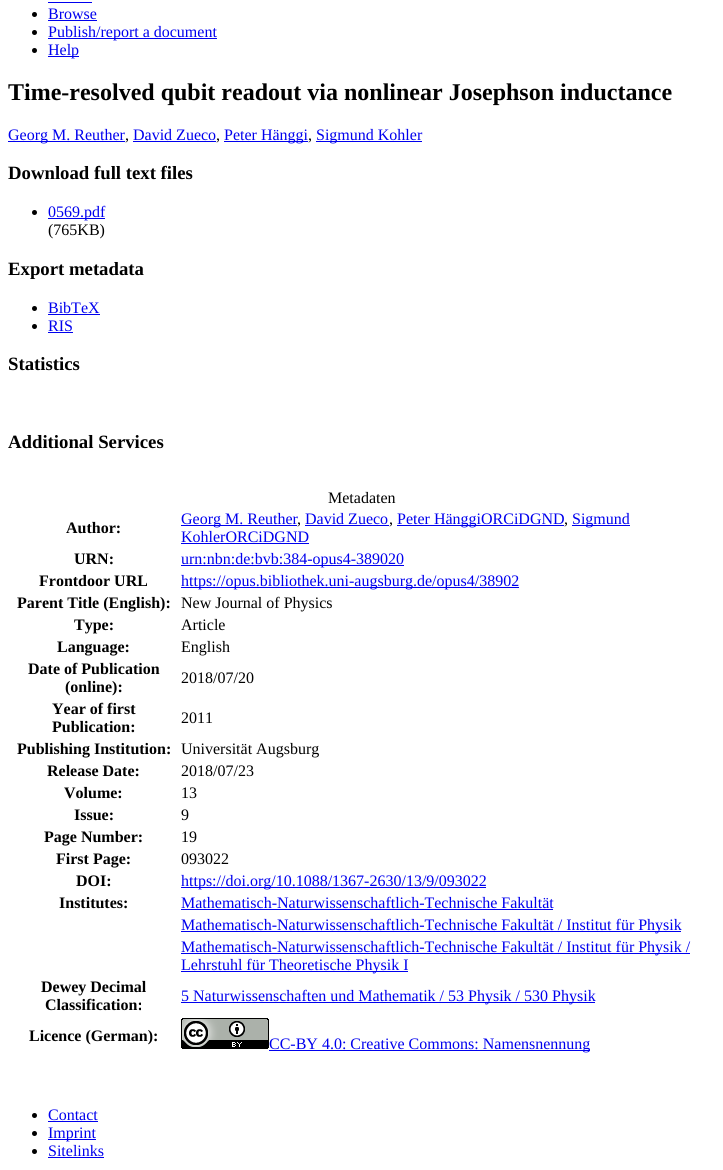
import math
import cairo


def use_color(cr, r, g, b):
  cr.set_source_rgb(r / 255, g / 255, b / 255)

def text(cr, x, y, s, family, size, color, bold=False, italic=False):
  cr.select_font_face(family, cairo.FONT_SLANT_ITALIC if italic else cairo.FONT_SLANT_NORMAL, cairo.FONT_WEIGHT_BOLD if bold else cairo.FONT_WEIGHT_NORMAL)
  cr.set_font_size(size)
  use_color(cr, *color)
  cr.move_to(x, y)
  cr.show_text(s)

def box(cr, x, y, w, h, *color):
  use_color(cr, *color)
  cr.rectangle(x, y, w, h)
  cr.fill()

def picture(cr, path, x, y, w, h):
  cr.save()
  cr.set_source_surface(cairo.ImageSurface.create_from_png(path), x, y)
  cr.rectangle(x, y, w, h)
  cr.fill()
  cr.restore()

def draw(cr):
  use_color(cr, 255, 255, 255)
  cr.paint()
  box(cr, 48, 2, 44, 1, 0, 0, 238)
  use_color(cr, 0, 0, 0)
  cr.arc(34.5, 14.5, 2.5, 0, 2 * math.pi)
  cr.fill()
  box(cr, 48, 20, 49, 1, 0, 0, 238)
  use_color(cr, 0, 0, 0)
  cr.arc(34.5, 32.5, 2.5, 0, 2 * math.pi)
  cr.fill()
  box(cr, 48, 38, 169, 1, 0, 0, 238)
  use_color(cr, 0, 0, 0)
  cr.arc(34.5, 50.5, 2.5, 0, 2 * math.pi)
  cr.fill()
  box(cr, 48, 56, 31, 1, 0, 0, 238)
  box(cr, 8, 141, 117, 1, 0, 0, 238)
  box(cr, 133, 141, 83, 1, 0, 0, 238)
  box(cr, 224, 141, 84, 1, 0, 0, 238)
  box(cr, 316, 141, 106, 1, 0, 0, 238)
  use_color(cr, 0, 0, 0)
  cr.arc(34.5, 212.5, 2.5, 0, 2 * math.pi)
  cr.fill()
  box(cr, 48, 218, 57, 1, 0, 0, 238)
  use_color(cr, 0, 0, 0)
  cr.arc(34.5, 308.5, 2.5, 0, 2 * math.pi)
  cr.fill()
  box(cr, 48, 314, 52, 1, 0, 0, 238)
  use_color(cr, 0, 0, 0)
  cr.arc(34.5, 326.5, 2.5, 0, 2 * math.pi)
  cr.fill()
  box(cr, 48, 332, 25, 1, 0, 0, 238)
  box(cr, 181, 525, 116, 1, 0, 0, 238)
  box(cr, 305, 525, 84, 1, 0, 0, 238)
  box(cr, 397, 525, 167, 1, 0, 0, 238)
  box(cr, 572, 525, 58, 1, 0, 0, 238)
  box(cr, 181, 543, 128, 1, 0, 0, 238)
  box(cr, 181, 565, 223, 1, 0, 0, 238)
  box(cr, 181, 587, 338, 1, 0, 0, 238)
  box(cr, 181, 887, 305, 1, 0, 0, 238)
  box(cr, 181, 909, 372, 1, 0, 0, 238)
  box(cr, 181, 931, 500, 1, 0, 0, 238)
  box(cr, 181, 953, 509, 1, 0, 0, 238)
  box(cr, 181, 971, 227, 1, 0, 0, 238)
  box(cr, 181, 1002, 414, 1, 0, 0, 238)
  picture(cr, "img_01.png", 181, 1018, 88, 31)
  box(cr, 269, 1050, 321, 1, 0, 0, 238)
  use_color(cr, 0, 0, 0)
  cr.arc(34.5, 1115.5, 2.5, 0, 2 * math.pi)
  cr.fill()
  box(cr, 48, 1121, 50, 1, 0, 0, 238)
  use_color(cr, 0, 0, 0)
  cr.arc(34.5, 1133.5, 2.5, 0, 2 * math.pi)
  cr.fill()
  box(cr, 48, 1139, 48, 1, 0, 0, 238)
  use_color(cr, 0, 0, 0)
  cr.arc(34.5, 1151.5, 2.5, 0, 2 * math.pi)
  cr.fill()
  box(cr, 48, 1157, 56, 1, 0, 0, 238)
  text(cr, 48, 19, "Browse", "Liberation Serif", 16, (0, 0, 238))
  text(cr, 48, 37, "Publish/report a document", "Liberation Serif", 16, (0, 0, 238))
  text(cr, 48, 55, "Help", "Liberation Serif", 16, (0, 0, 238))
  text(cr, 8, 100, "Time-resolved qubit readout via nonlinear Josephson inductance", "Liberation Serif", 24, (0, 0, 0), bold=True)
  text(cr, 8, 140, "Georg M. Reuther", "Liberation Serif", 16, (0, 0, 238))
  text(cr, 125, 140, ",", "Liberation Serif", 16, (0, 0, 0))
  text(cr, 133, 140, "David Zueco", "Liberation Serif", 16, (0, 0, 238))
  text(cr, 216, 140, ",", "Liberation Serif", 16, (0, 0, 0))
  text(cr, 224, 140, "Peter Hänggi", "Liberation Serif", 16, (0, 0, 238))
  text(cr, 308, 140, ",", "Liberation Serif", 16, (0, 0, 0))
  text(cr, 316, 140, "Sigmund Kohler", "Liberation Serif", 16, (0, 0, 238))
  text(cr, 8, 179, "Download full text files", "Liberation Serif", 18.75, (0, 0, 0), bold=True)
  text(cr, 48, 217, "0569.pdf", "Liberation Serif", 16, (0, 0, 238))
  text(cr, 48, 235, "(765KB)", "Liberation Serif", 16, (0, 0, 0))
  text(cr, 8, 275, "Export metadata", "Liberation Serif", 18.75, (0, 0, 0), bold=True)
  text(cr, 48, 313, "BibTeX", "Liberation Serif", 16, (0, 0, 238))
  text(cr, 48, 331, "RIS", "Liberation Serif", 16, (0, 0, 238))
  text(cr, 8, 370, "Statistics", "Liberation Serif", 18.75, (0, 0, 0), bold=True)
  text(cr, 8, 448, "Additional Services", "Liberation Serif", 18.75, (0, 0, 0), bold=True)
  text(cr, 328, 503, "Metadaten", "Liberation Serif", 16, (0, 0, 0))
  text(cr, 66, 533, "Author:", "Liberation Serif", 16, (0, 0, 0), bold=True)
  text(cr, 181, 524, "Georg M. Reuther", "Liberation Serif", 16, (0, 0, 238))
  text(cr, 297, 524, ",", "Liberation Serif", 16, (0, 0, 0))
  text(cr, 305, 524, "David Zueco", "Liberation Serif", 16, (0, 0, 238))
  text(cr, 389, 524, ",", "Liberation Serif", 16, (0, 0, 0))
  text(cr, 397, 524, "Peter HänggiORCiDGND", "Liberation Serif", 16, (0, 0, 238))
  text(cr, 564, 524, ",", "Liberation Serif", 16, (0, 0, 0))
  text(cr, 572, 524, "Sigmund", "Liberation Serif", 16, (0, 0, 238))
  text(cr, 181, 542, "KohlerORCiDGND", "Liberation Serif", 16, (0, 0, 238))
  text(cr, 74, 564, "URN:", "Liberation Serif", 16, (0, 0, 0), bold=True)
  text(cr, 181, 564, "urn:nbn:de:bvb:384-opus4-389020", "Liberation Serif", 16, (0, 0, 238))
  text(cr, 39, 586, "Frontdoor URL", "Liberation Serif", 16, (0, 0, 0), bold=True)
  text(cr, 181, 586, "https://opus.bibliothek.uni-augsburg.de/opus4/38902", "Liberation Serif", 16, (0, 0, 238))
  text(cr, 17, 608, "Parent Title (English):", "Liberation Serif", 16, (0, 0, 0), bold=True)
  text(cr, 181, 608, "New Journal of Physics", "Liberation Serif", 16, (0, 0, 0))
  text(cr, 74, 630, "Type:", "Liberation Serif", 16, (0, 0, 0), bold=True)
  text(cr, 181, 630, "Article", "Liberation Serif", 16, (0, 0, 0))
  text(cr, 57, 652, "Language:", "Liberation Serif", 16, (0, 0, 0), bold=True)
  text(cr, 181, 652, "English", "Liberation Serif", 16, (0, 0, 0))
  text(cr, 28, 674, "Date of Publication", "Liberation Serif", 16, (0, 0, 0), bold=True)
  text(cr, 65, 692, "(online):", "Liberation Serif", 16, (0, 0, 0), bold=True)
  text(cr, 181, 683, "2018/07/20", "Liberation Serif", 16, (0, 0, 0))
  text(cr, 52, 714, "Year of first", "Liberation Serif", 16, (0, 0, 0), bold=True)
  text(cr, 52, 732, "Publication:", "Liberation Serif", 16, (0, 0, 0), bold=True)
  text(cr, 181, 723, "2011", "Liberation Serif", 16, (0, 0, 0))
  text(cr, 17, 754, "Publishing Institution:", "Liberation Serif", 16, (0, 0, 0), bold=True)
  text(cr, 181, 754, "Universität Augsburg", "Liberation Serif", 16, (0, 0, 0))
  text(cr, 47, 776, "Release Date:", "Liberation Serif", 16, (0, 0, 0), bold=True)
  text(cr, 181, 776, "2018/07/23", "Liberation Serif", 16, (0, 0, 0))
  text(cr, 64, 798, "Volume:", "Liberation Serif", 16, (0, 0, 0), bold=True)
  text(cr, 181, 798, "13", "Liberation Serif", 16, (0, 0, 0))
  text(cr, 74, 820, "Issue:", "Liberation Serif", 16, (0, 0, 0), bold=True)
  text(cr, 181, 820, "9", "Liberation Serif", 16, (0, 0, 0))
  text(cr, 44, 842, "Page Number:", "Liberation Serif", 16, (0, 0, 0), bold=True)
  text(cr, 181, 842, "19", "Liberation Serif", 16, (0, 0, 0))
  text(cr, 56, 864, "First Page:", "Liberation Serif", 16, (0, 0, 0), bold=True)
  text(cr, 181, 864, "093022", "Liberation Serif", 16, (0, 0, 0))
  text(cr, 76, 886, "DOI:", "Liberation Serif", 16, (0, 0, 0), bold=True)
  text(cr, 181, 886, "https://doi.org/10.1088/1367-2630/13/9/093022", "Liberation Serif", 16, (0, 0, 238))
  text(cr, 59, 908, "Institutes:", "Liberation Serif", 16, (0, 0, 0), bold=True)
  text(cr, 181, 908, "Mathematisch-Naturwissenschaftlich-Technische Fakultät", "Liberation Serif", 16, (0, 0, 238))
  text(cr, 181, 930, "Mathematisch-Naturwissenschaftlich-Technische Fakultät / Institut für Physik", "Liberation Serif", 16, (0, 0, 238))
  text(cr, 181, 952, "Mathematisch-Naturwissenschaftlich-Technische Fakultät / Institut für Physik /", "Liberation Serif", 16, (0, 0, 238))
  text(cr, 181, 970, "Lehrstuhl für Theoretische Physik I", "Liberation Serif", 16, (0, 0, 238))
  text(cr, 41, 992, "Dewey Decimal", "Liberation Serif", 16, (0, 0, 0), bold=True)
  text(cr, 45, 1010, "Classification:", "Liberation Serif", 16, (0, 0, 0), bold=True)
  text(cr, 181, 1001, "5 Naturwissenschaften und Mathematik / 53 Physik / 530 Physik", "Liberation Serif", 16, (0, 0, 238))
  text(cr, 29, 1041, "Licence (German):", "Liberation Serif", 16, (0, 0, 0), bold=True)
  text(cr, 269, 1049, "CC-BY 4.0: Creative Commons: Namensnennung", "Liberation Serif", 16, (0, 0, 238))
  text(cr, 48, 1120, "Contact", "Liberation Serif", 16, (0, 0, 238))
  text(cr, 48, 1138, "Imprint", "Liberation Serif", 16, (0, 0, 238))
  text(cr, 48, 1156, "Sitelinks", "Liberation Serif", 16, (0, 0, 238))


surface = cairo.ImageSurface(cairo.FORMAT_RGB24, 723, 1170)
cr = cairo.Context(surface)
options = cairo.FontOptions()
options.set_hint_metrics(cairo.HINT_METRICS_OFF)
options.set_hint_style(cairo.HINT_STYLE_NONE)
cr.set_font_options(options)
cr.set_miter_limit(4)
draw(cr)
surface.write_to_png("out.png")
